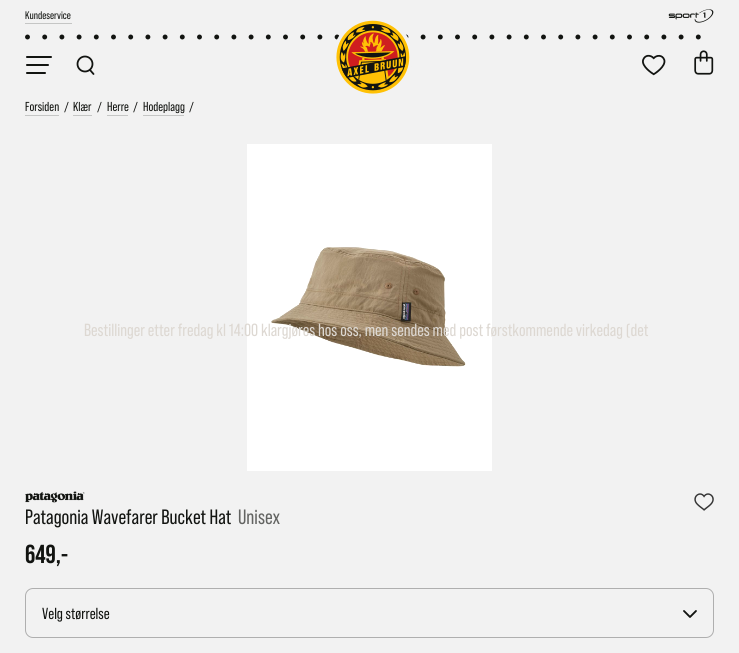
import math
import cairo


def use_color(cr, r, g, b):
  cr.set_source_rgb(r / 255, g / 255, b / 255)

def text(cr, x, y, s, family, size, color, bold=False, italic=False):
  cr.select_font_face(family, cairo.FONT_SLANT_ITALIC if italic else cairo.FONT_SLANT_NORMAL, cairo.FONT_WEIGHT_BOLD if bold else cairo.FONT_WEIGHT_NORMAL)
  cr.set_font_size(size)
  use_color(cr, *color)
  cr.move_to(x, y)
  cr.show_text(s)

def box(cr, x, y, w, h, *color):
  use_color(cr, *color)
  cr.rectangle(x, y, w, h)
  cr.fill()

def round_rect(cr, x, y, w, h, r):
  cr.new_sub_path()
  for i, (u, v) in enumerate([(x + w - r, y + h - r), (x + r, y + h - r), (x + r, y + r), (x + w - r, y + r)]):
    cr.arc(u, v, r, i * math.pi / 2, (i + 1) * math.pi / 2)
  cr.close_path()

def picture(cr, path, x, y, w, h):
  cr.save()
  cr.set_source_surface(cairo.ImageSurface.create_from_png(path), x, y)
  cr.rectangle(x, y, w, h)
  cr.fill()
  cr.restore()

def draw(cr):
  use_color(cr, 242, 242, 242)
  cr.paint()
  box(cr, 25, 23, 47, 1, 197, 198, 197)
  picture(cr, "img_01.png", 668, 9, 46, 14)
  cr.new_path()
  cr.move_to(27.5, 37)
  cr.line_to(713.5, 37)
  use_color(cr, 18, 20, 17)
  cr.set_line_width(4.9)
  cr.set_line_cap(cairo.LINE_CAP_ROUND)
  cr.set_dash([0, 17.2])
  cr.stroke()
  use_color(cr, 242, 242, 242)
  cr.arc(373, 57, 40, 0, 2 * math.pi)
  cr.fill()
  picture(cr, "img_02.png", 336, 20, 74, 74)
  use_color(cr, 18, 20, 17)
  round_rect(cr, 26, 56, 26, 2, 1)
  cr.fill()
  round_rect(cr, 26, 64, 23, 2, 1)
  cr.fill()
  round_rect(cr, 26, 72, 20, 2, 1)
  cr.fill()
  cr.arc(85, 64, 7.5, 0, 2 * math.pi)
  cr.set_line_width(1.8)
  cr.set_line_cap(cairo.LINE_CAP_BUTT)
  cr.set_dash([])
  cr.stroke()
  cr.new_path()
  cr.move_to(90, 70)
  cr.line_to(93.5, 74)
  cr.set_line_cap(cairo.LINE_CAP_ROUND)
  cr.stroke()
  picture(cr, "img_03.png", 642, 54, 24, 22)
  picture(cr, "img_04.png", 694, 50, 20, 25)
  box(cr, 25, 115, 34, 1, 197, 198, 197)
  box(cr, 73, 115, 19, 1, 197, 198, 197)
  box(cr, 107, 115, 21, 1, 197, 198, 197)
  box(cr, 143, 115, 41, 1, 197, 198, 197)
  picture(cr, "img_05.png", 247, 144, 245, 327)
  picture(cr, "img_06.png", 25, 491, 60, 12)
  picture(cr, "img_07.png", 694, 493, 20, 18)
  round_rect(cr, 25.5, 588.5, 688, 49, 7.5)
  use_color(cr, 175, 175, 175)
  cr.set_line_width(1)
  cr.set_line_cap(cairo.LINE_CAP_BUTT)
  cr.stroke()
  picture(cr, "img_08.png", 683, 610, 14, 8)
  text(cr, 25, 19, "Kundeservice", "Bebas Neue", 11, (18, 20, 17))
  text(cr, 25, 111, "Forsiden", "Bebas Neue", 13, (18, 20, 17))
  text(cr, 64, 111, "/", "Bebas Neue", 13, (18, 20, 17))
  text(cr, 73, 111, "Klær", "Bebas Neue", 13, (18, 20, 17))
  text(cr, 97, 111, "/", "Bebas Neue", 13, (18, 20, 17))
  text(cr, 107, 111, "Herre", "Bebas Neue", 13, (18, 20, 17))
  text(cr, 133, 111, "/", "Bebas Neue", 13, (18, 20, 17))
  text(cr, 143, 111, "Hodeplagg", "Bebas Neue", 13, (18, 20, 17))
  text(cr, 189, 111, "/", "Bebas Neue", 13, (18, 20, 17))
  text(cr, 84, 336, "Bestillinger etter fredag kl 14:00 klargjøres hos oss, men sendes med post førstkommende virkedag (det", "Bebas Neue", 17.6, (221, 216, 210))
  text(cr, 25, 524, "Patagonia Wavefarer Bucket Hat", "Bebas Neue", 20.75, (18, 20, 17))
  text(cr, 238, 524, "Unisex", "Bebas Neue", 20.75, (99, 100, 98))
  text(cr, 25, 563, "649,-", "Bebas Neue", 26, (18, 20, 17), bold=True)
  text(cr, 42, 619, "Velg størrelse", "Bebas Neue", 16, (18, 20, 17))


surface = cairo.ImageSurface(cairo.FORMAT_RGB24, 739, 653)
cr = cairo.Context(surface)
options = cairo.FontOptions()
options.set_hint_metrics(cairo.HINT_METRICS_OFF)
options.set_hint_style(cairo.HINT_STYLE_NONE)
cr.set_font_options(options)
cr.set_miter_limit(4)
draw(cr)
surface.write_to_png("out.png")
